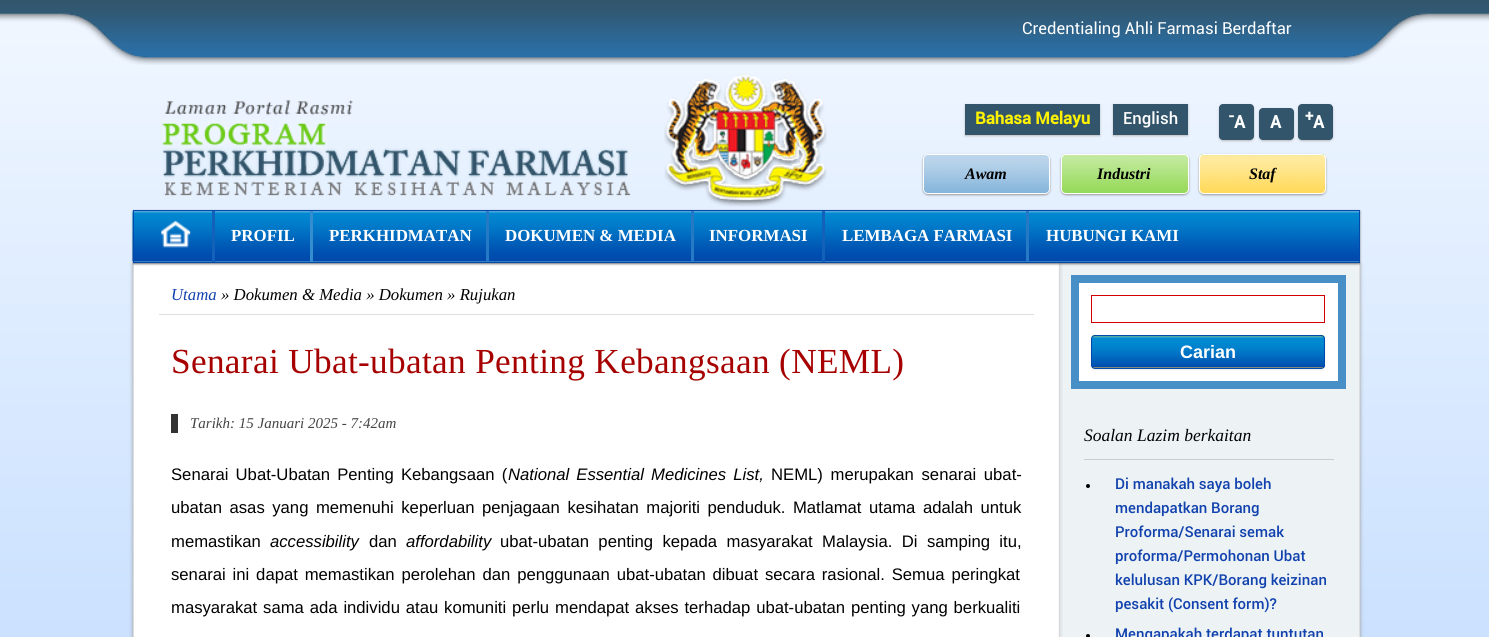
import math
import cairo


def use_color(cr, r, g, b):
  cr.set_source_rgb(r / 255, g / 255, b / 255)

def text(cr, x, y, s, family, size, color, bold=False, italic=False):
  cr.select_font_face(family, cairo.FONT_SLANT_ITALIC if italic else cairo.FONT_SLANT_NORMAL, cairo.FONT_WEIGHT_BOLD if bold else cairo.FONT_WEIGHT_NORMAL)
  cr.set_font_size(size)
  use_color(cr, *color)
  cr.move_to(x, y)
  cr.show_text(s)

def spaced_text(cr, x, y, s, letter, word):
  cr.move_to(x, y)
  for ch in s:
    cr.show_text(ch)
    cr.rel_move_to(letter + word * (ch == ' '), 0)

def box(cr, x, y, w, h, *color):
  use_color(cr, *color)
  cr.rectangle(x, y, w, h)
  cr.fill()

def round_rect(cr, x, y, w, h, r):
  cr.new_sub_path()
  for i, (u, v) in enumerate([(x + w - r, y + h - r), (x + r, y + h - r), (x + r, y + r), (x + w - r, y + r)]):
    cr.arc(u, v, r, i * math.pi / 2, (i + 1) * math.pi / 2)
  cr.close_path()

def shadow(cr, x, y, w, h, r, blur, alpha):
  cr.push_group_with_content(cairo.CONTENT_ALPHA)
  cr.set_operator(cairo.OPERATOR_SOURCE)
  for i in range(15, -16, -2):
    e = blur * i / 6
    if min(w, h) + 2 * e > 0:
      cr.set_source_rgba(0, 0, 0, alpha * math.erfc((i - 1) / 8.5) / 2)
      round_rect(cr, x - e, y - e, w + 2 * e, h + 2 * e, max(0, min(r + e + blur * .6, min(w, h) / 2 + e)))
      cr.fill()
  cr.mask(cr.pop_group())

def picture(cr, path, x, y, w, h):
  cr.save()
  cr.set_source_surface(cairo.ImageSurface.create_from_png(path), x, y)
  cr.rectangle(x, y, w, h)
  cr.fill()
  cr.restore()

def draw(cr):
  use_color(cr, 255, 255, 255)
  cr.paint()
  gradient = cairo.LinearGradient(745, 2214, 745, 0)
  gradient.add_color_stop_rgba(0, 1, 1, 1, 1)
  gradient.add_color_stop_rgba(0.7, 0.788, 0.878, 1, 1)
  gradient.add_color_stop_rgba(1, 0.945, 0.969, 1, 1)
  cr.set_source(gradient)
  cr.rectangle(0, 13, 1489, 624)
  cr.fill()
  picture(cr, "img_01.png", 0, 0, 1489, 65)
  picture(cr, "img_02.png", 162, 99, 469, 97)
  picture(cr, "img_03.png", 664, 74, 163, 133)
  use_color(cr, 187, 187, 187)
  shadow(cr, 965, 105, 135, 31, 0, 1, 1)
  box(cr, 965, 104, 135, 31, 50, 85, 107)
  use_color(cr, 187, 187, 187)
  shadow(cr, 1113, 105, 75, 31, 0, 1, 1)
  box(cr, 1113, 104, 75, 31, 50, 85, 107)
  use_color(cr, 187, 187, 187)
  shadow(cr, 1219, 105, 35, 36, 4, 1, 1)
  use_color(cr, 50, 85, 107)
  round_rect(cr, 1219, 104, 35, 36, 4)
  cr.fill()
  use_color(cr, 187, 187, 187)
  shadow(cr, 1259, 109, 35, 32, 4, 1, 1)
  use_color(cr, 50, 85, 107)
  round_rect(cr, 1259, 108, 35, 32, 4)
  cr.fill()
  use_color(cr, 187, 187, 187)
  shadow(cr, 1298, 105, 35, 36, 4, 1, 1)
  use_color(cr, 50, 85, 107)
  round_rect(cr, 1298, 104, 35, 36, 4)
  cr.fill()
  use_color(cr, 153, 153, 153)
  shadow(cr, 923, 155, 127, 40, 5, 1, 1)
  picture(cr, "img_04.png", 922, 155, 128, 39)
  round_rect(cr, 923.5, 154.5, 126, 39, 4.5)
  use_color(cr, 255, 255, 255)
  cr.set_line_width(1)
  cr.stroke()
  use_color(cr, 153, 153, 153)
  shadow(cr, 1061, 155, 128, 40, 5, 1, 1)
  picture(cr, "img_05.png", 1061, 154, 128, 40)
  round_rect(cr, 1061.5, 154.5, 127, 39, 4.5)
  use_color(cr, 255, 255, 255)
  cr.stroke()
  use_color(cr, 153, 153, 153)
  shadow(cr, 1199, 155, 127, 40, 5, 1, 1)
  picture(cr, "img_06.png", 1198, 154, 129, 40)
  round_rect(cr, 1199.5, 154.5, 126, 39, 4.5)
  use_color(cr, 255, 255, 255)
  cr.stroke()
  use_color(cr, 153, 153, 153)
  shadow(cr, 133, 265, 1227, 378, 0, 2, 1)
  box(cr, 134, 263, 925, 374, 255, 255, 255)
  box(cr, 1359, 263, 1, 374, 221, 221, 221)
  box(cr, 133, 263, 1, 374, 221, 221, 221)
  box(cr, 1059, 263, 300, 374, 237, 242, 245)
  picture(cr, "img_09.png", 1058, 263, 5, 374)
  use_color(cr, 119, 119, 119)
  shadow(cr, 133, 211, 1227, 53, 0, 1, 1)
  box(cr, 134, 211, 1225, 51, 72, 143, 200)
  picture(cr, "img_07.png", 132, 211, 1227, 51)
  cr.rectangle(133.5, 210.5, 1226, 52)
  use_color(cr, 0, 73, 172)
  cr.stroke()
  picture(cr, "img_08.png", 161, 220, 30, 28)
  box(cr, 212, 211, 3, 51, 19, 97, 184)
  box(cr, 310, 211, 3, 51, 52, 141, 207)
  box(cr, 486, 211, 3, 51, 38, 122, 197)
  box(cr, 691, 211, 3, 51, 38, 122, 197)
  box(cr, 822, 211, 3, 51, 19, 97, 184)
  box(cr, 1026, 211, 3, 51, 38, 122, 197)
  box(cr, 159, 314, 875, 1, 221, 221, 221)
  box(cr, 171, 414, 7, 19, 51, 51, 51)
  use_color(cr, 255, 255, 255)
  cr.rectangle(1075, 279, 267, 106)
  cr.fill_preserve()
  use_color(cr, 72, 143, 200)
  cr.set_line_width(8)
  cr.stroke()
  cr.rectangle(1091.5, 295.5, 233, 27)
  use_color(cr, 210, 0, 0)
  cr.set_line_width(1)
  cr.stroke()
  use_color(cr, 237, 237, 237)
  shadow(cr, 1091, 336, 234, 34, 4, 1, 1)
  picture(cr, "img_10.png", 1091, 335, 234, 34)
  round_rect(cr, 1091.5, 335.5, 233, 33, 3.5)
  use_color(cr, 0, 73, 172)
  cr.stroke()
  box(cr, 1084, 459, 250, 1, 204, 204, 204)
  use_color(cr, 0, 0, 0)
  cr.arc(1088, 486, 2, 0, 2 * math.pi)
  cr.fill()
  cr.arc(1088, 636, 2, 0, 2 * math.pi)
  cr.fill()
  text(cr, 1022, 34, "Credentialing Ahli Farmasi Berdaftar", "Roboto", 16.6, (255, 255, 255))
  text(cr, 975, 124, "Bahasa Melayu", "Roboto", 16.75, (255, 242, 0), bold=True)
  text(cr, 1123, 124, "English", "Roboto Medium", 16.75, (255, 255, 255))
  text(cr, 1228, 121, "-", "Roboto", 15, (255, 255, 255), bold=True)
  text(cr, 1234, 128, "A", "Roboto", 17.5, (255, 255, 255), bold=True)
  text(cr, 1270, 128, "A", "Roboto", 17.5, (255, 255, 255), bold=True)
  text(cr, 1305, 121, "+", "Roboto", 15, (255, 255, 255), bold=True)
  text(cr, 1313, 128, "A", "Roboto", 17.5, (255, 255, 255), bold=True)
  text(cr, 965, 179, "Awam", "Liberation Serif", 16, (0, 0, 0), bold=True, italic=True)
  text(cr, 1097, 179, "Industri", "Liberation Serif", 16, (0, 0, 0), bold=True, italic=True)
  text(cr, 1249, 179, "Staf", "Liberation Serif", 16, (0, 0, 0), bold=True, italic=True)
  text(cr, 231, 241, "PROFIL", "Liberation Serif", 16.9, (255, 255, 255), bold=True)
  text(cr, 329, 241, "PERKHIDMATAN", "Liberation Serif", 16.9, (255, 255, 255), bold=True)
  text(cr, 505, 241, "DOKUMEN & MEDIA", "Liberation Serif", 16.9, (255, 255, 255), bold=True)
  text(cr, 709, 241, "INFORMASI", "Liberation Serif", 16.9, (255, 255, 255), bold=True)
  text(cr, 842, 241, "LEMBAGA FARMASI", "Liberation Serif", 16.9, (255, 255, 255), bold=True)
  text(cr, 1046, 241, "HUBUNGI KAMI", "Liberation Serif", 16.9, (255, 255, 255), bold=True)
  text(cr, 171, 300, "Utama", "Liberation Serif", 16.75, (17, 66, 174), italic=True)
  text(cr, 221, 300, "» Dokumen & Media » Dokumen » Rujukan", "Liberation Serif", 16.75, (0, 0, 0), italic=True)
  cr.select_font_face("Liberation Serif")
  cr.set_font_size(35.2)
  use_color(cr, 166, 0, 0)
  spaced_text(cr, 171, 373, "Senarai Ubat-ubatan Penting Kebangsaan (NEML)", 0.35, 0)
  text(cr, 190, 428, "Tarikh: 15 Januari 2025 - 7:42am", "Liberation Serif", 15, (68, 68, 68), italic=True)
  cr.select_font_face("Liberation Sans")
  cr.set_font_size(16.67)
  use_color(cr, 0, 0, 0)
  spaced_text(cr, 171, 480, "Senarai Ubat-Ubatan Penting Kebangsaan (", 0, 2.5)
  cr.select_font_face("Liberation Sans", cairo.FONT_SLANT_ITALIC)
  spaced_text(cr, 508, 480, "National Essential Medicines List,", 0, 2.5)
  cr.select_font_face("Liberation Sans")
  spaced_text(cr, 771, 480, "NEML) merupakan senarai ubat-", 0, 3)
  spaced_text(cr, 171, 513, "ubatan asas yang memenuhi keperluan penjagaan kesihatan majoriti penduduk. Matlamat utama adalah untuk", 0, 2.9)
  text(cr, 171, 547, "memastikan", "Liberation Sans", 16.67, (0, 0, 0))
  text(cr, 270, 547, "accessibility", "Liberation Sans", 16.67, (0, 0, 0), italic=True)
  text(cr, 369, 547, "dan", "Liberation Sans", 16.67, (0, 0, 0))
  text(cr, 406, 547, "affordability", "Liberation Sans", 16.67, (0, 0, 0), italic=True)
  cr.select_font_face("Liberation Sans")
  spaced_text(cr, 500, 547, "ubat-ubatan penting kepada masyarakat Malaysia. Di samping itu,", 0, 4.75)
  spaced_text(cr, 171, 580, "senarai ini dapat memastikan perolehan dan penggunaan ubat-ubatan dibuat secara rasional. Semua peringkat", 0, 2.25)
  spaced_text(cr, 171, 613, "masyarakat sama ada individu atau komuniti perlu mendapat akses terhadap ubat-ubatan penting yang berkualiti", 0, 1.25)
  text(cr, 1180, 358, "Carian", "Liberation Sans", 18, (255, 255, 255), bold=True)
  text(cr, 1084, 441, "Soalan Lazim berkaitan", "Liberation Serif", 17.5, (0, 0, 0), italic=True)
  text(cr, 1115, 489, "Di manakah saya boleh", "Roboto Medium", 15, (17, 66, 174))
  text(cr, 1115, 513, "mendapatkan Borang", "Roboto Medium", 15, (17, 66, 174))
  text(cr, 1115, 537, "Proforma/Senarai semak", "Roboto Medium", 15, (17, 66, 174))
  text(cr, 1115, 561, "proforma/Permohonan Ubat", "Roboto Medium", 15, (17, 66, 174))
  text(cr, 1115, 585, "kelulusan KPK/Borang keizinan", "Roboto Medium", 15, (17, 66, 174))
  text(cr, 1115, 609, "pesakit (Consent form)?", "Roboto Medium", 15, (17, 66, 174))
  text(cr, 1115, 639, "Mengapakah terdapat tuntutan", "Roboto Medium", 15, (17, 66, 174))


surface = cairo.ImageSurface(cairo.FORMAT_RGB24, 1489, 637)
cr = cairo.Context(surface)
options = cairo.FontOptions()
options.set_hint_metrics(cairo.HINT_METRICS_OFF)
options.set_hint_style(cairo.HINT_STYLE_NONE)
cr.set_font_options(options)
cr.set_miter_limit(4)
draw(cr)
surface.write_to_png("out.png")
